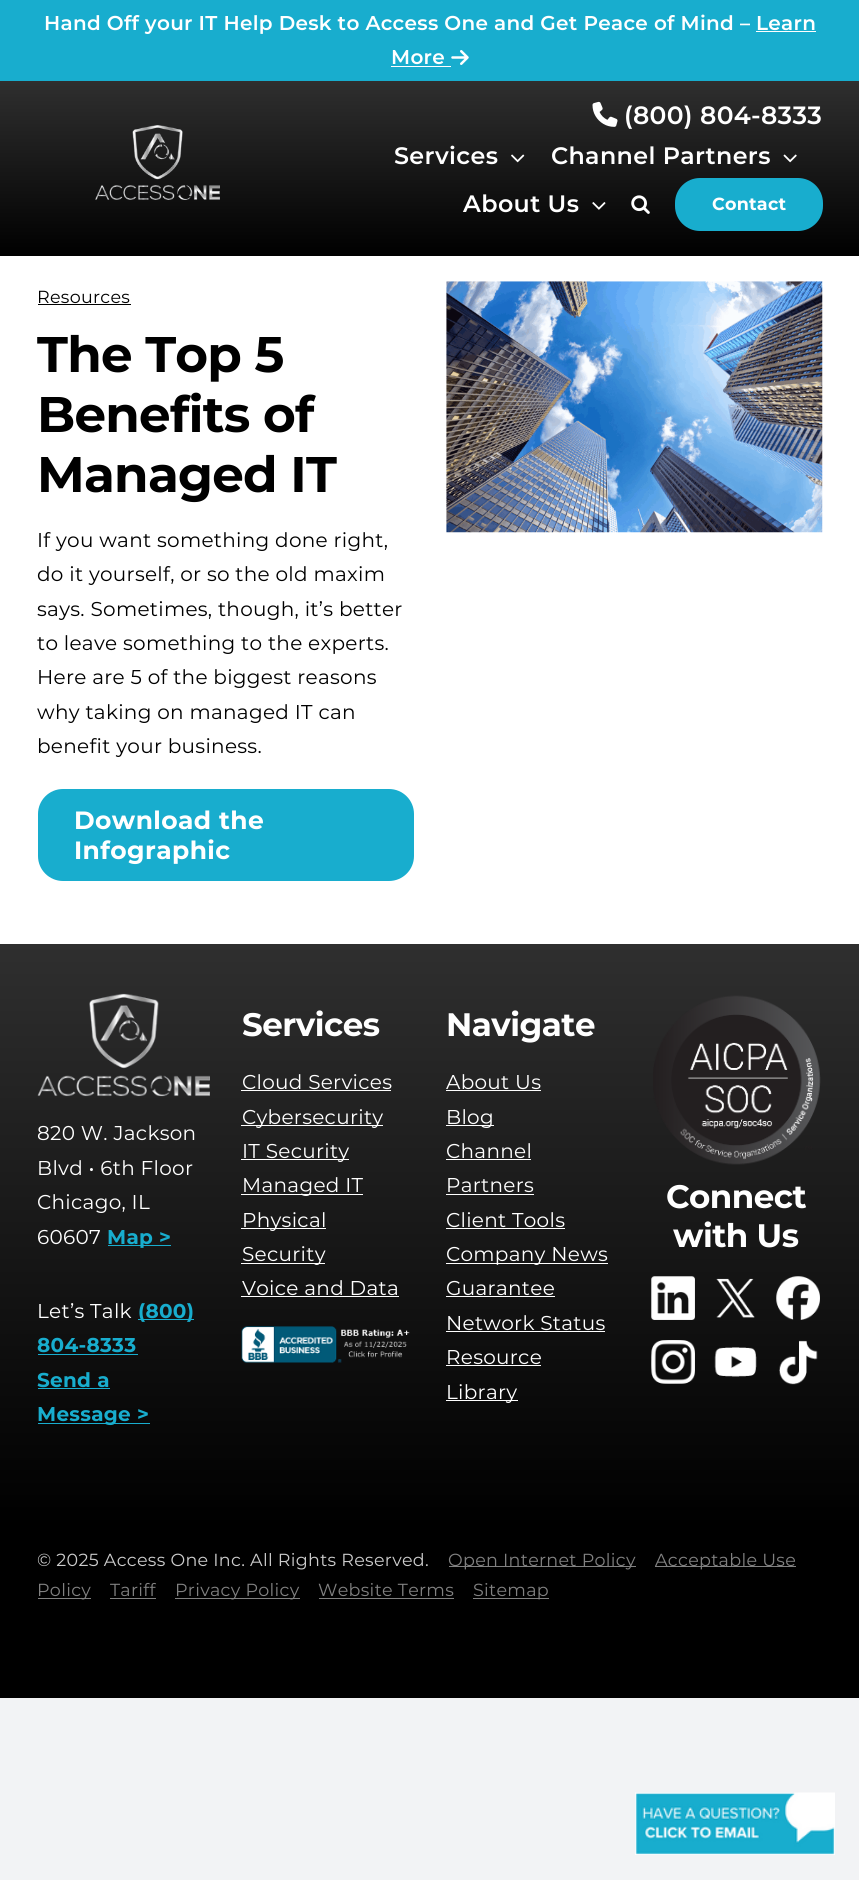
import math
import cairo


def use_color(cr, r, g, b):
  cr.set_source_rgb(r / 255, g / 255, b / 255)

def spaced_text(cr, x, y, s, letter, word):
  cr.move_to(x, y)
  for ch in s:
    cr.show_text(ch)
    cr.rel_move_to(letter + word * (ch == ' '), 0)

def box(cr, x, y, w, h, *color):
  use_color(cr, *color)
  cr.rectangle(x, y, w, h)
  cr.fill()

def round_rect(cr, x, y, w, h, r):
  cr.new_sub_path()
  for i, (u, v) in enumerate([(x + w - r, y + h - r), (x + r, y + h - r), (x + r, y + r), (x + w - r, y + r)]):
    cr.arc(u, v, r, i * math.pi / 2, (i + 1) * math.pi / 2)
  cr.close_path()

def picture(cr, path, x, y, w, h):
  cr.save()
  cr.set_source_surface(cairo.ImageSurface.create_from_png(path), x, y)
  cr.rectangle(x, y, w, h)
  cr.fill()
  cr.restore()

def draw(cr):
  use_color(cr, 242, 243, 245)
  cr.paint()
  box(cr, 0, 256, 859, 688, 255, 255, 255)
  box(cr, 0, 0, 859, 81, 24, 173, 206)
  box(cr, 756, 31, 60, 1, 255, 255, 255)
  box(cr, 391, 66, 60, 1, 255, 255, 255)
  picture(cr, "img_01.png", 451, 50, 18, 15)
  gradient = cairo.LinearGradient(430, 81, 430, 256)
  gradient.add_color_stop_rgba(0, 0.184, 0.184, 0.184, 1)
  gradient.add_color_stop_rgba(1, 0, 0, 0, 1)
  cr.set_source(gradient)
  cr.rectangle(0, 81, 859, 175)
  cr.fill()
  picture(cr, "img_02.png", 95, 125, 125, 75)
  picture(cr, "img_03.png", 592, 101, 26, 26)
  picture(cr, "img_04.png", 511, 154, 14, 9)
  picture(cr, "img_05.png", 783, 154, 14, 9)
  picture(cr, "img_06.png", 592, 202, 14, 8)
  picture(cr, "img_07.png", 631, 195, 19, 19)
  use_color(cr, 24, 173, 206)
  round_rect(cr, 675, 178, 148, 53, 25)
  cr.fill()
  box(cr, 38, 304, 93, 1, 0, 0, 0)
  use_color(cr, 24, 173, 206)
  round_rect(cr, 38, 789, 376, 92, 25)
  cr.fill()
  picture(cr, "img_08.png", 446, 281, 377, 252)
  gradient = cairo.LinearGradient(430, 944, 430, 1526)
  gradient.add_color_stop_rgba(0, 0.184, 0.184, 0.184, 1)
  gradient.add_color_stop_rgba(1, 0, 0, 0, 1)
  cr.set_source(gradient)
  cr.rectangle(0, 944, 859, 582)
  cr.fill()
  picture(cr, "img_09.png", 37, 993, 173, 104)
  box(cr, 108, 1245, 63, 1, 24, 173, 206)
  box(cr, 138, 1319, 56, 1, 24, 173, 206)
  box(cr, 38, 1354, 100, 1, 24, 173, 206)
  box(cr, 38, 1388, 72, 1, 24, 173, 206)
  box(cr, 38, 1423, 112, 1, 24, 173, 206)
  box(cr, 241, 1090, 150, 1, 255, 255, 255)
  box(cr, 241, 1125, 142, 1, 255, 255, 255)
  box(cr, 241, 1159, 108, 1, 255, 255, 255)
  box(cr, 241, 1194, 122, 1, 255, 255, 255)
  box(cr, 241, 1228, 85, 1, 255, 255, 255)
  box(cr, 241, 1263, 84, 1, 255, 255, 255)
  box(cr, 241, 1296, 158, 1, 255, 255, 255)
  picture(cr, "img_10.png", 241, 1326, 169, 37)
  box(cr, 446, 1090, 95, 1, 255, 255, 255)
  box(cr, 446, 1125, 48, 1, 255, 255, 255)
  box(cr, 446, 1159, 85, 1, 255, 255, 255)
  box(cr, 446, 1194, 88, 1, 255, 255, 255)
  box(cr, 446, 1228, 119, 1, 255, 255, 255)
  box(cr, 446, 1263, 162, 1, 255, 255, 255)
  box(cr, 446, 1296, 109, 1, 255, 255, 255)
  box(cr, 446, 1331, 159, 1, 255, 255, 255)
  box(cr, 446, 1365, 95, 1, 255, 255, 255)
  box(cr, 446, 1400, 72, 1, 255, 255, 255)
  picture(cr, "img_11.png", 653, 995, 168, 170)
  picture(cr, "img_12.png", 651, 1276, 44, 44)
  picture(cr, "img_13.png", 716, 1278, 39, 40)
  picture(cr, "img_14.png", 776, 1276, 44, 44)
  picture(cr, "img_15.png", 651, 1340, 44, 44)
  picture(cr, "img_16.png", 714, 1347, 43, 30)
  picture(cr, "img_17.png", 779, 1340, 39, 45)
  box(cr, 0, 1526, 859, 172, 0, 0, 0)
  box(cr, 449, 1566, 187, 1, 128, 128, 128)
  box(cr, 655, 1566, 141, 1, 128, 128, 128)
  box(cr, 38, 1598, 53, 1, 128, 128, 128)
  box(cr, 110, 1598, 46, 1, 128, 128, 128)
  box(cr, 175, 1598, 125, 1, 128, 128, 128)
  box(cr, 319, 1598, 135, 1, 128, 128, 128)
  box(cr, 473, 1598, 76, 1, 128, 128, 128)
  picture(cr, "img_18.png", 635, 1792, 200, 63)
  cr.select_font_face("Montserrat SemiBold")
  cr.set_font_size(20)
  use_color(cr, 255, 255, 255)
  spaced_text(cr, 44, 30, "Hand Off your IT Help Desk to Access One and Get Peace of Mind – Learn", 0.3, 0)
  spaced_text(cr, 391, 64, "More", 0.3, 0)
  cr.set_font_size(25)
  spaced_text(cr, 624, 124, "(800) 804-8333", 0.3, 0)
  cr.set_font_size(23.75)
  spaced_text(cr, 394, 164, "Services", 0.4, 0)
  spaced_text(cr, 551, 164, "Channel Partners", 0.4, 0)
  spaced_text(cr, 463, 212, "About Us", 0.4, 0)
  cr.select_font_face("Montserrat", cairo.FONT_SLANT_NORMAL, cairo.FONT_WEIGHT_BOLD)
  cr.set_font_size(17.5)
  spaced_text(cr, 712, 210, "Contact", 0.25, 0)
  cr.select_font_face("Montserrat")
  use_color(cr, 0, 0, 0)
  spaced_text(cr, 37, 303, "Resources", 0.3, 0)
  cr.select_font_face("Montserrat", cairo.FONT_SLANT_NORMAL, cairo.FONT_WEIGHT_BOLD)
  cr.set_font_size(50)
  spaced_text(cr, 37, 372, "The Top 5", -0.75, 0)
  spaced_text(cr, 37, 432, "Benefits of", -0.75, 0)
  spaced_text(cr, 37, 492, "Managed IT", -0.75, 0)
  cr.select_font_face("Montserrat")
  cr.set_font_size(20)
  spaced_text(cr, 37, 547, "If you want something done right,", 0.3, 0)
  spaced_text(cr, 37, 581, "do it yourself, or so the old maxim", 0.3, 0)
  spaced_text(cr, 37, 616, "says. Sometimes, though, it’s better", 0.3, 0)
  spaced_text(cr, 37, 650, "to leave something to the experts.", 0.3, 0)
  spaced_text(cr, 37, 684, "Here are 5 of the biggest reasons", 0.3, 0)
  spaced_text(cr, 37, 719, "why taking on managed IT can", 0.3, 0)
  spaced_text(cr, 37, 753, "benefit your business.", 0.3, 0)
  cr.select_font_face("Montserrat", cairo.FONT_SLANT_NORMAL, cairo.FONT_WEIGHT_BOLD)
  cr.set_font_size(25)
  use_color(cr, 255, 255, 255)
  spaced_text(cr, 74, 829, "Download the", 0.4, 0)
  spaced_text(cr, 74, 859, "Infographic", 0.4, 0)
  cr.select_font_face("Montserrat")
  cr.set_font_size(20)
  spaced_text(cr, 37, 1140, "820 W. Jackson", 0.3, 0)
  spaced_text(cr, 37, 1175, "Blvd • 6th Floor", 0.3, 0)
  spaced_text(cr, 37, 1209, "Chicago, IL", 0.3, 0)
  spaced_text(cr, 37, 1244, "60607", 0.3, 0)
  cr.select_font_face("Montserrat", cairo.FONT_SLANT_NORMAL, cairo.FONT_WEIGHT_BOLD)
  use_color(cr, 24, 173, 206)
  spaced_text(cr, 107, 1244, "Map >", 0.3, 0)
  cr.select_font_face("Montserrat")
  use_color(cr, 255, 255, 255)
  spaced_text(cr, 37, 1318, "Let’s Talk", 0.3, 0)
  cr.select_font_face("Montserrat", cairo.FONT_SLANT_NORMAL, cairo.FONT_WEIGHT_BOLD)
  use_color(cr, 24, 173, 206)
  spaced_text(cr, 138, 1318, "(800)", 0.3, 0)
  spaced_text(cr, 37, 1352, "804-8333", 0.3, 0)
  spaced_text(cr, 37, 1387, "Send a", 0.3, 0)
  spaced_text(cr, 37, 1421, "Message >", 0.3, 0)
  cr.set_font_size(32.5)
  use_color(cr, 255, 255, 255)
  spaced_text(cr, 242, 1036, "Services", -0.5, 0)
  cr.select_font_face("Montserrat")
  cr.set_font_size(20)
  spaced_text(cr, 242, 1089, "Cloud Services", 0.3, 0)
  spaced_text(cr, 242, 1124, "Cybersecurity", 0.3, 0)
  spaced_text(cr, 242, 1158, "IT Security", 0.3, 0)
  spaced_text(cr, 242, 1192, "Managed IT", 0.3, 0)
  spaced_text(cr, 242, 1227, "Physical", 0.3, 0)
  spaced_text(cr, 242, 1261, "Security", 0.3, 0)
  spaced_text(cr, 242, 1295, "Voice and Data", 0.3, 0)
  cr.select_font_face("Montserrat", cairo.FONT_SLANT_NORMAL, cairo.FONT_WEIGHT_BOLD)
  cr.set_font_size(32.5)
  spaced_text(cr, 446, 1036, "Navigate", -0.5, 0)
  cr.select_font_face("Montserrat")
  cr.set_font_size(20)
  spaced_text(cr, 446, 1089, "About Us", 0.3, 0)
  spaced_text(cr, 446, 1124, "Blog", 0.3, 0)
  spaced_text(cr, 446, 1158, "Channel", 0.3, 0)
  spaced_text(cr, 446, 1192, "Partners", 0.3, 0)
  spaced_text(cr, 446, 1227, "Client Tools", 0.3, 0)
  spaced_text(cr, 446, 1261, "Company News", 0.3, 0)
  spaced_text(cr, 446, 1295, "Guarantee", 0.3, 0)
  spaced_text(cr, 446, 1330, "Network Status", 0.3, 0)
  spaced_text(cr, 446, 1364, "Resource", 0.3, 0)
  spaced_text(cr, 446, 1399, "Library", 0.3, 0)
  cr.select_font_face("Montserrat", cairo.FONT_SLANT_NORMAL, cairo.FONT_WEIGHT_BOLD)
  cr.set_font_size(32.5)
  spaced_text(cr, 666, 1208, "Connect", -0.5, 0)
  spaced_text(cr, 673, 1247, "with Us", -0.5, 0)
  cr.select_font_face("Montserrat")
  cr.set_font_size(17.5)
  use_color(cr, 204, 204, 204)
  spaced_text(cr, 37, 1566, "© 2025 Access One Inc. All Rights Reserved.", 0.3, 0)
  use_color(cr, 129, 129, 129)
  spaced_text(cr, 448, 1566, "Open Internet Policy", 0.3, 0)
  spaced_text(cr, 655, 1566, "Acceptable Use", 0.3, 0)
  spaced_text(cr, 37, 1596, "Policy", 0.3, 0)
  spaced_text(cr, 110, 1596, "Tariff", 0.3, 0)
  spaced_text(cr, 175, 1596, "Privacy Policy", 0.3, 0)
  spaced_text(cr, 318, 1596, "Website Terms", 0.3, 0)
  spaced_text(cr, 473, 1596, "Sitemap", 0.3, 0)


surface = cairo.ImageSurface(cairo.FORMAT_RGB24, 859, 1880)
cr = cairo.Context(surface)
options = cairo.FontOptions()
options.set_hint_metrics(cairo.HINT_METRICS_OFF)
options.set_hint_style(cairo.HINT_STYLE_NONE)
cr.set_font_options(options)
cr.set_miter_limit(4)
draw(cr)
surface.write_to_png("out.png")
